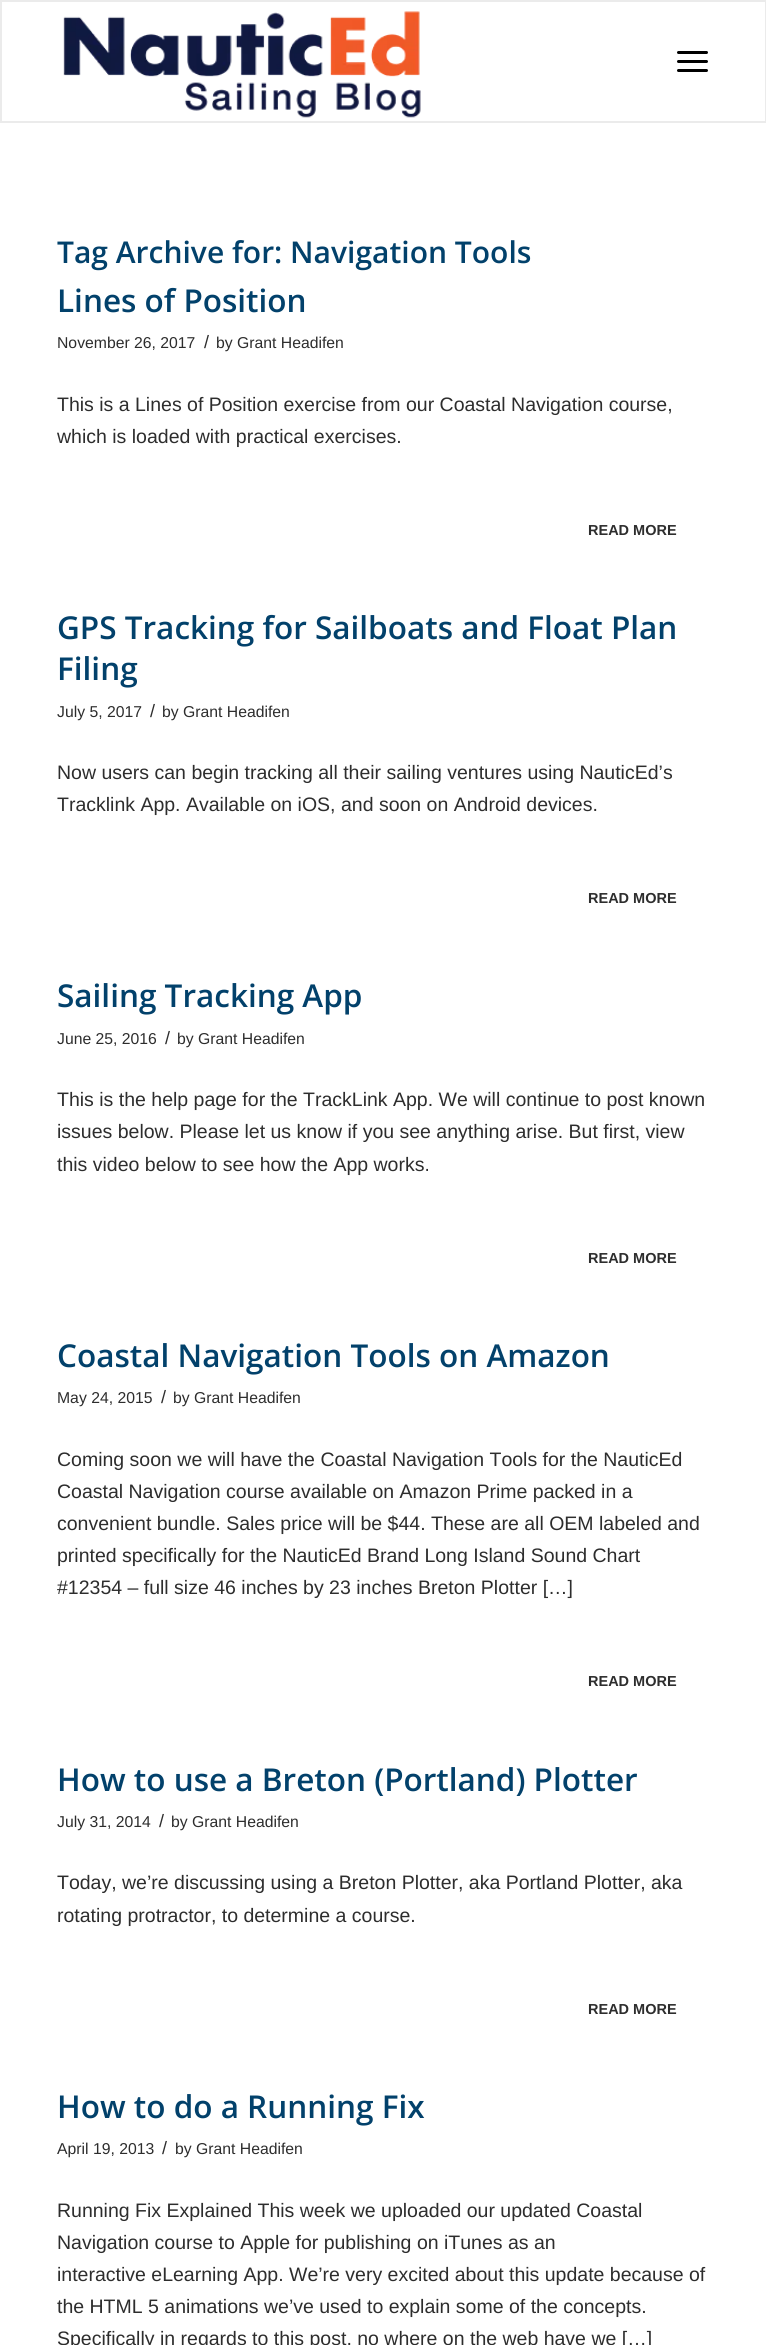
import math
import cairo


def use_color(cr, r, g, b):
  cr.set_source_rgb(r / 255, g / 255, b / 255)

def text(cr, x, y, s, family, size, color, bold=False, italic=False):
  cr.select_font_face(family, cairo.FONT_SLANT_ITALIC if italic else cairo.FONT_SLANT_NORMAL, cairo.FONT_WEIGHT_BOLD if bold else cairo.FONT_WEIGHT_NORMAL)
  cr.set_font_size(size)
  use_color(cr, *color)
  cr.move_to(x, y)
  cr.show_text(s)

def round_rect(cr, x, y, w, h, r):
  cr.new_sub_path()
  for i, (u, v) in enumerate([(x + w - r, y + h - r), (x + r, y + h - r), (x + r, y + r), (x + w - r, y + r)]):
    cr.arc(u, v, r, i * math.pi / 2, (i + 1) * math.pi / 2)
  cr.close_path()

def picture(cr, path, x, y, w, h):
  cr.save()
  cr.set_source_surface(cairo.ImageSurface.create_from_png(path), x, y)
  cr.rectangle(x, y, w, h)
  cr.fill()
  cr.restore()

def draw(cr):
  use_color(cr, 255, 255, 255)
  cr.paint()
  cr.rectangle(1, 1, 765, 121)
  use_color(cr, 235, 235, 235)
  cr.stroke()
  picture(cr, "img_01.png", 63, 11, 358, 107)
  use_color(cr, 0, 0, 0)
  round_rect(cr, 677, 60, 31, 3, 1.5)
  cr.fill()
  round_rect(cr, 677, 51, 31, 3, 1.5)
  cr.fill()
  round_rect(cr, 677, 69, 31, 3, 1.5)
  cr.fill()
  text(cr, 57, 263, "Tag Archive for: Navigation Tools", "Open Sans SemiBold", 30, (2, 65, 107))
  text(cr, 57, 312, "Lines of Position", "Open Sans SemiBold", 31.5, (2, 65, 107))
  text(cr, 57, 348, "November 26, 2017", "Liberation Sans", 15.75, (45, 45, 45))
  text(cr, 204, 348, "/", "Liberation Sans", 18, (45, 45, 45))
  text(cr, 216, 348, "by Grant Headifen", "Liberation Sans", 15.75, (45, 45, 45))
  text(cr, 57, 411, "This is a Lines of Position exercise from our Coastal Navigation course,", "Liberation Sans", 19.5, (45, 45, 45))
  text(cr, 57, 443, "which is loaded with practical exercises.", "Liberation Sans", 19.5, (45, 45, 45))
  text(cr, 588, 535, "READ MORE", "Liberation Sans", 14.5, (45, 45, 45), bold=True)
  text(cr, 57, 639, "GPS Tracking for Sailboats and Float Plan", "Open Sans SemiBold", 31.5, (2, 65, 107))
  text(cr, 57, 680, "Filing", "Open Sans SemiBold", 31.5, (2, 65, 107))
  text(cr, 57, 717, "July 5, 2017", "Liberation Sans", 15.75, (45, 45, 45))
  text(cr, 150, 717, "/", "Liberation Sans", 18, (45, 45, 45))
  text(cr, 162, 717, "by Grant Headifen", "Liberation Sans", 15.75, (45, 45, 45))
  text(cr, 57, 779, "Now users can begin tracking all their sailing ventures using NauticEd’s", "Liberation Sans", 19.5, (45, 45, 45))
  text(cr, 57, 811, "Tracklink App. Available on iOS, and soon on Android devices.", "Liberation Sans", 19.5, (45, 45, 45))
  text(cr, 588, 903, "READ MORE", "Liberation Sans", 14.5, (45, 45, 45), bold=True)
  text(cr, 57, 1007, "Sailing Tracking App", "Open Sans SemiBold", 31.5, (2, 65, 107))
  text(cr, 57, 1044, "June 25, 2016", "Liberation Sans", 15.75, (45, 45, 45))
  text(cr, 165, 1044, "/", "Liberation Sans", 18, (45, 45, 45))
  text(cr, 177, 1044, "by Grant Headifen", "Liberation Sans", 15.75, (45, 45, 45))
  text(cr, 57, 1106, "This is the help page for the TrackLink App. We will continue to post known", "Liberation Sans", 19.5, (45, 45, 45))
  text(cr, 57, 1138, "issues below. Please let us know if you see anything arise. But first, view", "Liberation Sans", 19.5, (45, 45, 45))
  text(cr, 57, 1171, "this video below to see how the App works.", "Liberation Sans", 19.5, (45, 45, 45))
  text(cr, 588, 1263, "READ MORE", "Liberation Sans", 14.5, (45, 45, 45), bold=True)
  text(cr, 57, 1367, "Coastal Navigation Tools on Amazon", "Open Sans SemiBold", 31.5, (2, 65, 107))
  text(cr, 57, 1403, "May 24, 2015", "Liberation Sans", 15.75, (45, 45, 45))
  text(cr, 161, 1403, "/", "Liberation Sans", 18, (45, 45, 45))
  text(cr, 173, 1403, "by Grant Headifen", "Liberation Sans", 15.75, (45, 45, 45))
  text(cr, 57, 1466, "Coming soon we will have the Coastal Navigation Tools for the NauticEd", "Liberation Sans", 19.5, (45, 45, 45))
  text(cr, 57, 1498, "Coastal Navigation course available on Amazon Prime packed in a", "Liberation Sans", 19.5, (45, 45, 45))
  text(cr, 57, 1530, "convenient bundle. Sales price will be $44. These are all OEM labeled and", "Liberation Sans", 19.5, (45, 45, 45))
  text(cr, 57, 1562, "printed specifically for the NauticEd Brand Long Island Sound Chart", "Liberation Sans", 19.5, (45, 45, 45))
  text(cr, 57, 1594, "#12354 – full size 46 inches by 23 inches Breton Plotter […]", "Liberation Sans", 19.5, (45, 45, 45))
  text(cr, 588, 1686, "READ MORE", "Liberation Sans", 14.5, (45, 45, 45), bold=True)
  text(cr, 57, 1791, "How to use a Breton (Portland) Plotter", "Open Sans SemiBold", 31.5, (2, 65, 107))
  text(cr, 57, 1827, "July 31, 2014", "Liberation Sans", 15.75, (45, 45, 45))
  text(cr, 159, 1827, "/", "Liberation Sans", 18, (45, 45, 45))
  text(cr, 171, 1827, "by Grant Headifen", "Liberation Sans", 15.75, (45, 45, 45))
  text(cr, 57, 1889, "Today, we’re discussing using a Breton Plotter, aka Portland Plotter, aka", "Liberation Sans", 19.5, (45, 45, 45))
  text(cr, 57, 1922, "rotating protractor, to determine a course.", "Liberation Sans", 19.5, (45, 45, 45))
  text(cr, 588, 2014, "READ MORE", "Liberation Sans", 14.5, (45, 45, 45), bold=True)
  text(cr, 57, 2118, "How to do a Running Fix", "Open Sans SemiBold", 31.5, (2, 65, 107))
  text(cr, 57, 2154, "April 19, 2013", "Liberation Sans", 15.75, (45, 45, 45))
  text(cr, 162, 2154, "/", "Liberation Sans", 18, (45, 45, 45))
  text(cr, 175, 2154, "by Grant Headifen", "Liberation Sans", 15.75, (45, 45, 45))
  text(cr, 57, 2217, "Running Fix Explained This week we uploaded our updated Coastal", "Liberation Sans", 19.5, (45, 45, 45))
  text(cr, 57, 2249, "Navigation course to Apple for publishing on iTunes as an", "Liberation Sans", 19.5, (45, 45, 45))
  text(cr, 57, 2281, "interactive eLearning App. We’re very excited about this update because of", "Liberation Sans", 19.5, (45, 45, 45))
  text(cr, 57, 2313, "the HTML 5 animations we’ve used to explain some of the concepts.", "Liberation Sans", 19.5, (45, 45, 45))
  text(cr, 57, 2345, "Specifically in regards to this post, no where on the web have we […]", "Liberation Sans", 19.5, (45, 45, 45))


surface = cairo.ImageSurface(cairo.FORMAT_RGB24, 766, 2345)
cr = cairo.Context(surface)
options = cairo.FontOptions()
options.set_hint_metrics(cairo.HINT_METRICS_OFF)
options.set_hint_style(cairo.HINT_STYLE_NONE)
cr.set_font_options(options)
cr.set_miter_limit(4)
draw(cr)
surface.write_to_png("out.png")
